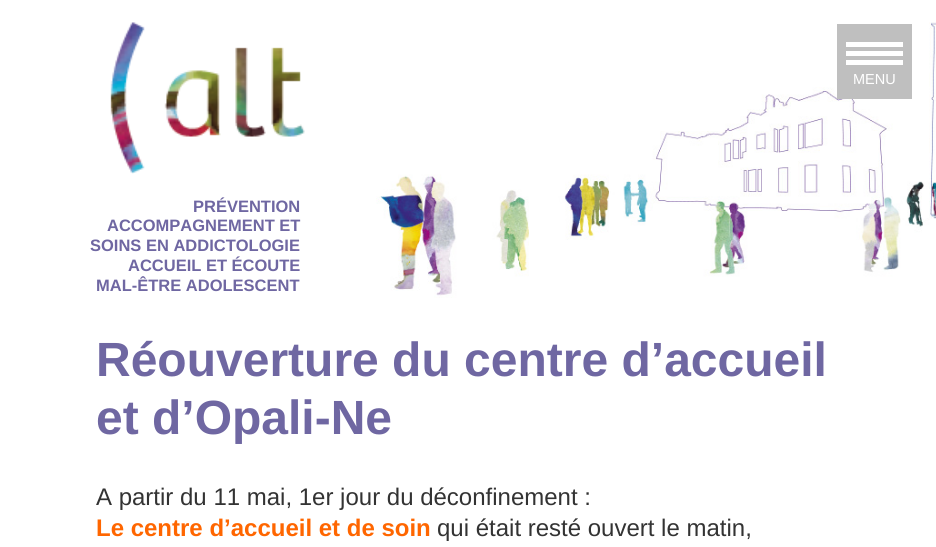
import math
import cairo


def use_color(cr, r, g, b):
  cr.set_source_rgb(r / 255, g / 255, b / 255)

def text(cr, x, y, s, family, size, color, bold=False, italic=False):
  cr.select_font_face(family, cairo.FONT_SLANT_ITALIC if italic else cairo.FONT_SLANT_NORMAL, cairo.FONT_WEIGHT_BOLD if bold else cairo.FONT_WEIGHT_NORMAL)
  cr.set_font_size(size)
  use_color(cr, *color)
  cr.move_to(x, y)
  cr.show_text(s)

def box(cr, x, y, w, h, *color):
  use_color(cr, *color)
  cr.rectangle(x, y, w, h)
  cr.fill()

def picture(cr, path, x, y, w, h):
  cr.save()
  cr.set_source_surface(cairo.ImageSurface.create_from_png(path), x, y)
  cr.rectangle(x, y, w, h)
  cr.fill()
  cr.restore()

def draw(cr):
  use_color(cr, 255, 255, 255)
  cr.paint()
  picture(cr, "img_01.png", 376, 22, 560, 276)
  box(cr, 837, 24, 75, 75, 191, 191, 191)
  box(cr, 846, 51, 57, 5, 255, 255, 255)
  box(cr, 846, 42, 57, 5, 255, 255, 255)
  box(cr, 846, 60, 57, 5, 255, 255, 255)
  picture(cr, "img_02.png", 110, 22, 195, 152)
  text(cr, 853, 84, "MENU", "Liberation Sans", 14.5, (255, 255, 255))
  text(cr, 193, 212, "PRÉVENTION", "Liberation Sans", 16.5, (111, 103, 162), bold=True)
  text(cr, 107, 231, "ACCOMPAGNEMENT ET", "Liberation Sans", 16.5, (111, 103, 162), bold=True)
  text(cr, 90, 251, "SOINS EN ADDICTOLOGIE", "Liberation Sans", 16.5, (111, 103, 162), bold=True)
  text(cr, 128, 271, "ACCUEIL ET ÉCOUTE", "Liberation Sans", 16.5, (111, 103, 162), bold=True)
  text(cr, 96, 291, "MAL-ÊTRE ADOLESCENT", "Liberation Sans", 16.5, (111, 103, 162), bold=True)
  text(cr, 96, 376, "Réouverture du centre d’accueil", "Liberation Sans", 48, (111, 103, 162), bold=True)
  text(cr, 96, 434, "et d’Opali-Ne", "Liberation Sans", 48, (111, 103, 162), bold=True)
  text(cr, 96, 505, "A partir du 11 mai, 1er jour du déconfinement :", "Liberation Sans", 24, (51, 51, 51))
  text(cr, 96, 536, "Le centre d’accueil et de soin", "Liberation Sans", 24, (255, 102, 0), bold=True)
  text(cr, 437, 536, "qui était resté ouvert le matin,", "Liberation Sans", 24, (51, 51, 51))


surface = cairo.ImageSurface(cairo.FORMAT_RGB24, 936, 547)
cr = cairo.Context(surface)
options = cairo.FontOptions()
options.set_hint_metrics(cairo.HINT_METRICS_OFF)
options.set_hint_style(cairo.HINT_STYLE_NONE)
cr.set_font_options(options)
cr.set_miter_limit(4)
draw(cr)
surface.write_to_png("out.png")
